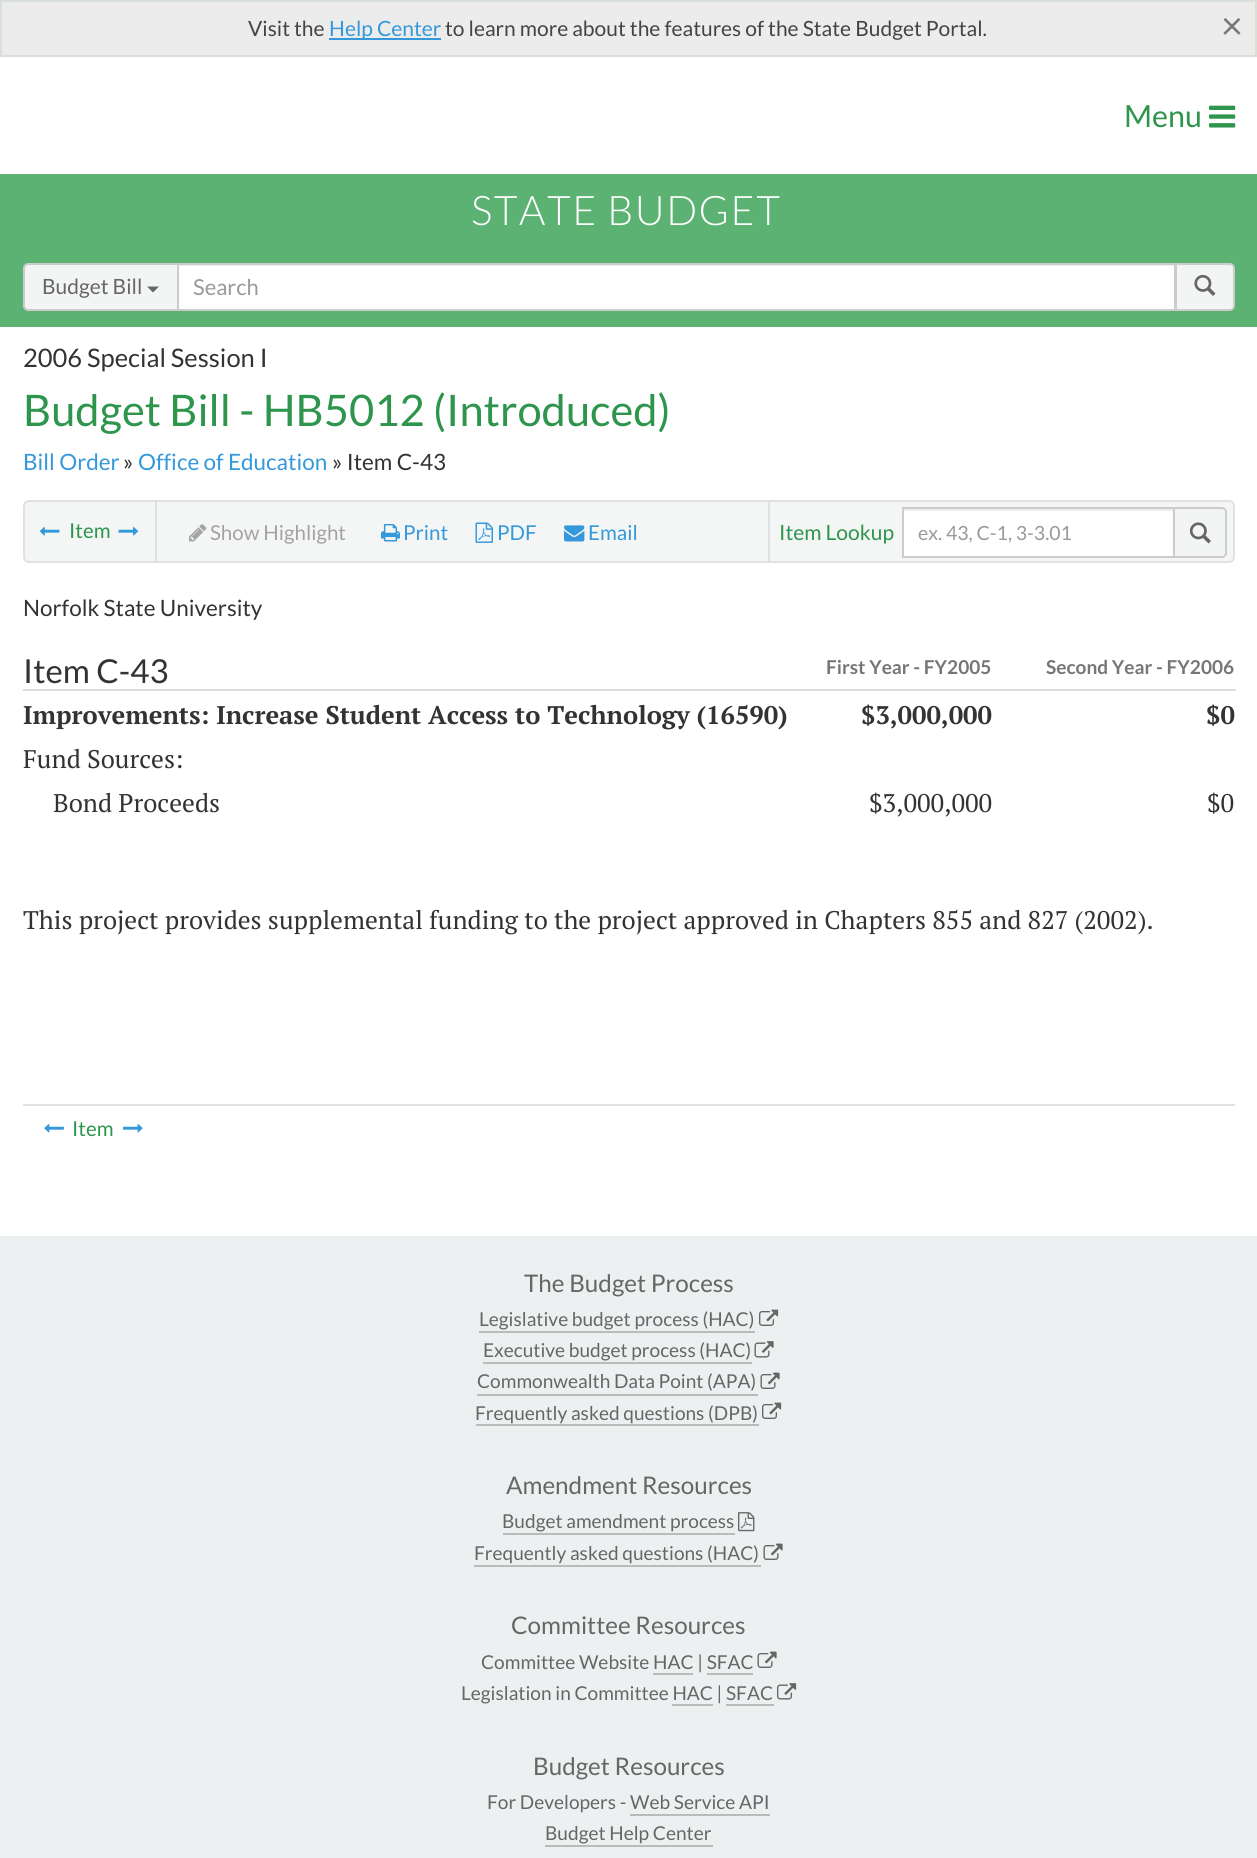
import math
import cairo


def use_color(cr, r, g, b):
  cr.set_source_rgb(r / 255, g / 255, b / 255)

def text(cr, x, y, s, family, size, color, bold=False, italic=False):
  cr.select_font_face(family, cairo.FONT_SLANT_ITALIC if italic else cairo.FONT_SLANT_NORMAL, cairo.FONT_WEIGHT_BOLD if bold else cairo.FONT_WEIGHT_NORMAL)
  cr.set_font_size(size)
  use_color(cr, *color)
  cr.move_to(x, y)
  cr.show_text(s)

def spaced_text(cr, x, y, s, letter, word):
  cr.move_to(x, y)
  for ch in s:
    cr.show_text(ch)
    cr.rel_move_to(letter + word * (ch == ' '), 0)

def box(cr, x, y, w, h, *color):
  use_color(cr, *color)
  cr.rectangle(x, y, w, h)
  cr.fill()

def round_rect(cr, x, y, w, h, r):
  cr.new_sub_path()
  for i, (u, v) in enumerate([(x + w - r, y + h - r), (x + r, y + h - r), (x + r, y + r), (x + w - r, y + r)]):
    cr.arc(u, v, r, i * math.pi / 2, (i + 1) * math.pi / 2)
  cr.close_path()

def picture(cr, path, x, y, w, h):
  cr.save()
  cr.set_source_surface(cairo.ImageSurface.create_from_png(path), x, y)
  cr.rectangle(x, y, w, h)
  cr.fill()
  cr.restore()

def draw(cr):
  use_color(cr, 255, 255, 255)
  cr.paint()
  use_color(cr, 236, 236, 236)
  cr.rectangle(1, 1, 1255, 55)
  cr.fill_preserve()
  use_color(cr, 217, 224, 218)
  cr.stroke()
  box(cr, 329, 38, 112, 2, 52, 152, 219)
  picture(cr, "img_01.png", 1209, 105, 27, 23)
  box(cr, 0, 174, 1257, 153, 91, 178, 114)
  box(cr, 179, 266, 995, 43, 255, 255, 255)
  box(cr, 179, 265, 996, 1, 236, 236, 236)
  cr.rectangle(178, 264, 997, 46)
  use_color(cr, 204, 204, 204)
  cr.stroke()
  use_color(cr, 243, 245, 245)
  cr.new_path()
  cr.move_to(28, 264)
  cr.line_to(178, 264)
  cr.line_to(178, 310)
  cr.line_to(28, 310)
  cr.curve_to(26, 310, 24, 308, 24, 306)
  cr.line_to(24, 268)
  cr.curve_to(24, 266, 26, 264, 28, 264)
  cr.close_path()
  cr.fill_preserve()
  use_color(cr, 204, 204, 204)
  cr.stroke()
  use_color(cr, 102, 102, 102)
  cr.new_path()
  cr.move_to(147, 286.5)
  cr.line_to(159, 286.5)
  cr.line_to(153, 292.5)
  cr.close_path()
  cr.fill()
  use_color(cr, 243, 245, 245)
  cr.new_path()
  cr.move_to(1176, 264)
  cr.line_to(1230, 264)
  cr.curve_to(1232, 264, 1234, 266, 1234, 268)
  cr.line_to(1234, 306)
  cr.curve_to(1234, 308, 1232, 310, 1230, 310)
  cr.line_to(1176, 310)
  cr.close_path()
  cr.fill_preserve()
  use_color(cr, 204, 204, 204)
  cr.stroke()
  picture(cr, "img_02.png", 1194, 274, 22, 22)
  use_color(cr, 244, 245, 245)
  round_rect(cr, 24, 501, 1210, 61, 5)
  cr.fill_preserve()
  use_color(cr, 222, 226, 227)
  cr.stroke()
  box(cr, 155, 501, 2, 60, 222, 226, 227)
  picture(cr, "img_03.png", 39, 526, 21, 10)
  picture(cr, "img_04.png", 118, 526, 21, 10)
  picture(cr, "img_05.png", 189, 524, 18, 18)
  picture(cr, "img_06.png", 381, 524, 19, 18)
  picture(cr, "img_07.png", 475, 522, 18, 21)
  picture(cr, "img_08.png", 564, 525, 21, 17)
  box(cr, 768, 501, 2, 60, 222, 226, 227)
  box(cr, 904, 511, 269, 45, 255, 255, 255)
  box(cr, 903, 509, 270, 2, 236, 236, 236)
  cr.rectangle(903, 508, 271, 49)
  use_color(cr, 204, 204, 204)
  cr.stroke()
  use_color(cr, 243, 245, 245)
  cr.new_path()
  cr.move_to(1174, 508)
  cr.line_to(1222, 508)
  cr.curve_to(1224, 508, 1226, 510, 1226, 512)
  cr.line_to(1226, 553)
  cr.curve_to(1226, 555, 1224, 557, 1222, 557)
  cr.line_to(1174, 557)
  cr.close_path()
  cr.fill_preserve()
  use_color(cr, 204, 204, 204)
  cr.stroke()
  picture(cr, "img_09.png", 1189, 522, 22, 22)
  box(cr, 23, 689, 1213, 2, 221, 221, 221)
  box(cr, 23, 1104, 1212, 2, 222, 226, 227)
  picture(cr, "img_10.png", 44, 1124, 20, 9)
  picture(cr, "img_11.png", 123, 1123, 20, 10)
  box(cr, 0, 1236, 1257, 622, 236, 240, 241)
  box(cr, 479, 1331, 276, 2, 187, 187, 187)
  picture(cr, "img_12.png", 759, 1309, 20, 17)
  box(cr, 483, 1362, 269, 2, 187, 187, 187)
  picture(cr, "img_13.png", 754, 1341, 20, 17)
  box(cr, 477, 1394, 281, 2, 187, 187, 187)
  picture(cr, "img_14.png", 760, 1372, 20, 17)
  box(cr, 476, 1424, 283, 2, 187, 187, 187)
  picture(cr, "img_12.png", 762, 1402, 20, 17)
  box(cr, 503, 1533, 232, 2, 187, 187, 187)
  picture(cr, "img_15.png", 738, 1512, 17, 20)
  box(cr, 474, 1565, 287, 2, 187, 187, 187)
  picture(cr, "img_14.png", 763, 1543, 20, 17)
  picture(cr, "img_14.png", 757, 1651, 20, 17)
  box(cr, 653, 1673, 40, 2, 187, 187, 187)
  box(cr, 707, 1673, 46, 2, 187, 187, 187)
  picture(cr, "img_16.png", 777, 1683, 20, 17)
  box(cr, 672, 1704, 41, 2, 187, 187, 187)
  box(cr, 726, 1704, 48, 2, 187, 187, 187)
  box(cr, 630, 1814, 140, 2, 187, 187, 187)
  box(cr, 545, 1845, 168, 2, 187, 187, 187)
  text(cr, 248, 36, "Visit the", "Lato", 21, (68, 68, 68))
  text(cr, 329, 36, "Help Center", "Lato", 21, (52, 152, 219))
  text(cr, 445, 36, "to learn more about the features of the State Budget Portal.", "Lato", 21, (68, 68, 68))
  text(cr, 1221, 39, "×", "Lato", 38, (118, 118, 118))
  text(cr, 1124, 127, "Menu", "Lato", 30.5, (46, 149, 76))
  cr.select_font_face("Lato Light")
  cr.set_font_size(40.75)
  use_color(cr, 255, 255, 255)
  spaced_text(cr, 471, 225, "STATE BUDGET", 1.5, 0)
  text(cr, 42, 294, "Budget Bill", "Lato", 21, (102, 102, 102))
  text(cr, 193, 295, "Search", "Lato", 22, (153, 153, 153))
  text(cr, 23, 367, "2006 Special Session I", "Lato", 25.5, (51, 51, 51))
  text(cr, 23, 426, "Budget Bill - HB5012 (Introduced)", "Lato", 43.5, (46, 149, 76))
  text(cr, 23, 470, "Bill Order", "Lato", 22.5, (52, 152, 219))
  text(cr, 123, 470, "»", "Lato", 22.5, (51, 51, 51))
  text(cr, 138, 470, "Office of Education", "Lato", 22.5, (52, 152, 219))
  text(cr, 332, 470, "» Item C-43", "Lato", 22.5, (51, 51, 51))
  text(cr, 69, 538, "Item", "Lato", 20.5, (46, 149, 76))
  text(cr, 210, 540, "Show Highlight", "Lato", 20.5, (163, 163, 163))
  text(cr, 403, 540, "Print", "Lato", 20.5, (52, 152, 219))
  text(cr, 497, 540, "PDF", "Lato", 20.5, (52, 152, 219))
  text(cr, 588, 540, "Email", "Lato", 20.5, (52, 152, 219))
  text(cr, 779, 540, "Item Lookup", "Lato", 21, (46, 149, 76))
  text(cr, 918, 540, "ex. 43, C-1, 3-3.01", "Lato", 19.5, (153, 153, 153))
  text(cr, 23, 616, "Norfolk State University", "Lato", 22.5, (51, 51, 51))
  text(cr, 23, 683, "Item C-43", "Lato", 33, (51, 51, 51))
  text(cr, 826, 674, "First Year - FY2005", "Lato", 19.1, (118, 118, 118), bold=True)
  text(cr, 1046, 674, "Second Year - FY2006", "Lato", 19.1, (118, 118, 118), bold=True)
  text(cr, 23, 724, "Improvements: Increase Student Access to Technology (16590)", "PT Serif", 25.5, (51, 51, 51), bold=True)
  text(cr, 861, 724, "$3,000,000", "PT Serif", 25.5, (51, 51, 51), bold=True)
  text(cr, 1206, 724, "$0", "PT Serif", 25.5, (51, 51, 51), bold=True)
  text(cr, 23, 768, "Fund Sources:", "PT Serif", 25.5, (51, 51, 51))
  text(cr, 53, 812, "Bond Proceeds", "PT Serif", 25.5, (51, 51, 51))
  text(cr, 869, 812, "$3,000,000", "PT Serif", 25.5, (51, 51, 51))
  text(cr, 1207, 812, "$0", "PT Serif", 25.5, (51, 51, 51))
  text(cr, 23, 929, "This project provides supplemental funding to the project approved in Chapters 855 and 827 (2002).", "PT Serif", 25.5, (51, 51, 51))
  text(cr, 72, 1136, "Item", "Lato", 20.5, (46, 149, 76))
  text(cr, 524, 1292, "The Budget Process", "Lato", 24.25, (102, 102, 102))
  text(cr, 479, 1326, "Legislative budget process (HAC)", "Lato", 19.1, (102, 102, 102))
  text(cr, 483, 1357, "Executive budget process (HAC)", "Lato", 19.1, (102, 102, 102))
  text(cr, 477, 1388, "Commonwealth Data Point (APA)", "Lato", 19.1, (102, 102, 102))
  text(cr, 475, 1420, "Frequently asked questions (DPB)", "Lato", 19.1, (102, 102, 102))
  text(cr, 506, 1494, "Amendment Resources", "Lato", 24.25, (102, 102, 102))
  text(cr, 502, 1528, "Budget amendment process", "Lato", 19.1, (102, 102, 102))
  text(cr, 474, 1560, "Frequently asked questions (HAC)", "Lato", 19.1, (102, 102, 102))
  text(cr, 511, 1634, "Committee Resources", "Lato", 24.25, (102, 102, 102))
  text(cr, 481, 1669, "Committee Website HAC | SFAC", "Lato", 19.1, (102, 102, 102))
  text(cr, 461, 1700, "Legislation in Committee HAC | SFAC", "Lato", 19.1, (102, 102, 102))
  text(cr, 533, 1775, "Budget Resources", "Lato", 24.25, (102, 102, 102))
  text(cr, 487, 1809, "For Developers - Web Service API", "Lato", 19.1, (102, 102, 102))
  text(cr, 545, 1840, "Budget Help Center", "Lato", 19.1, (102, 102, 102))


surface = cairo.ImageSurface(cairo.FORMAT_RGB24, 1257, 1858)
cr = cairo.Context(surface)
options = cairo.FontOptions()
options.set_hint_metrics(cairo.HINT_METRICS_OFF)
options.set_hint_style(cairo.HINT_STYLE_NONE)
cr.set_font_options(options)
cr.set_miter_limit(4)
draw(cr)
surface.write_to_png("out.png")
